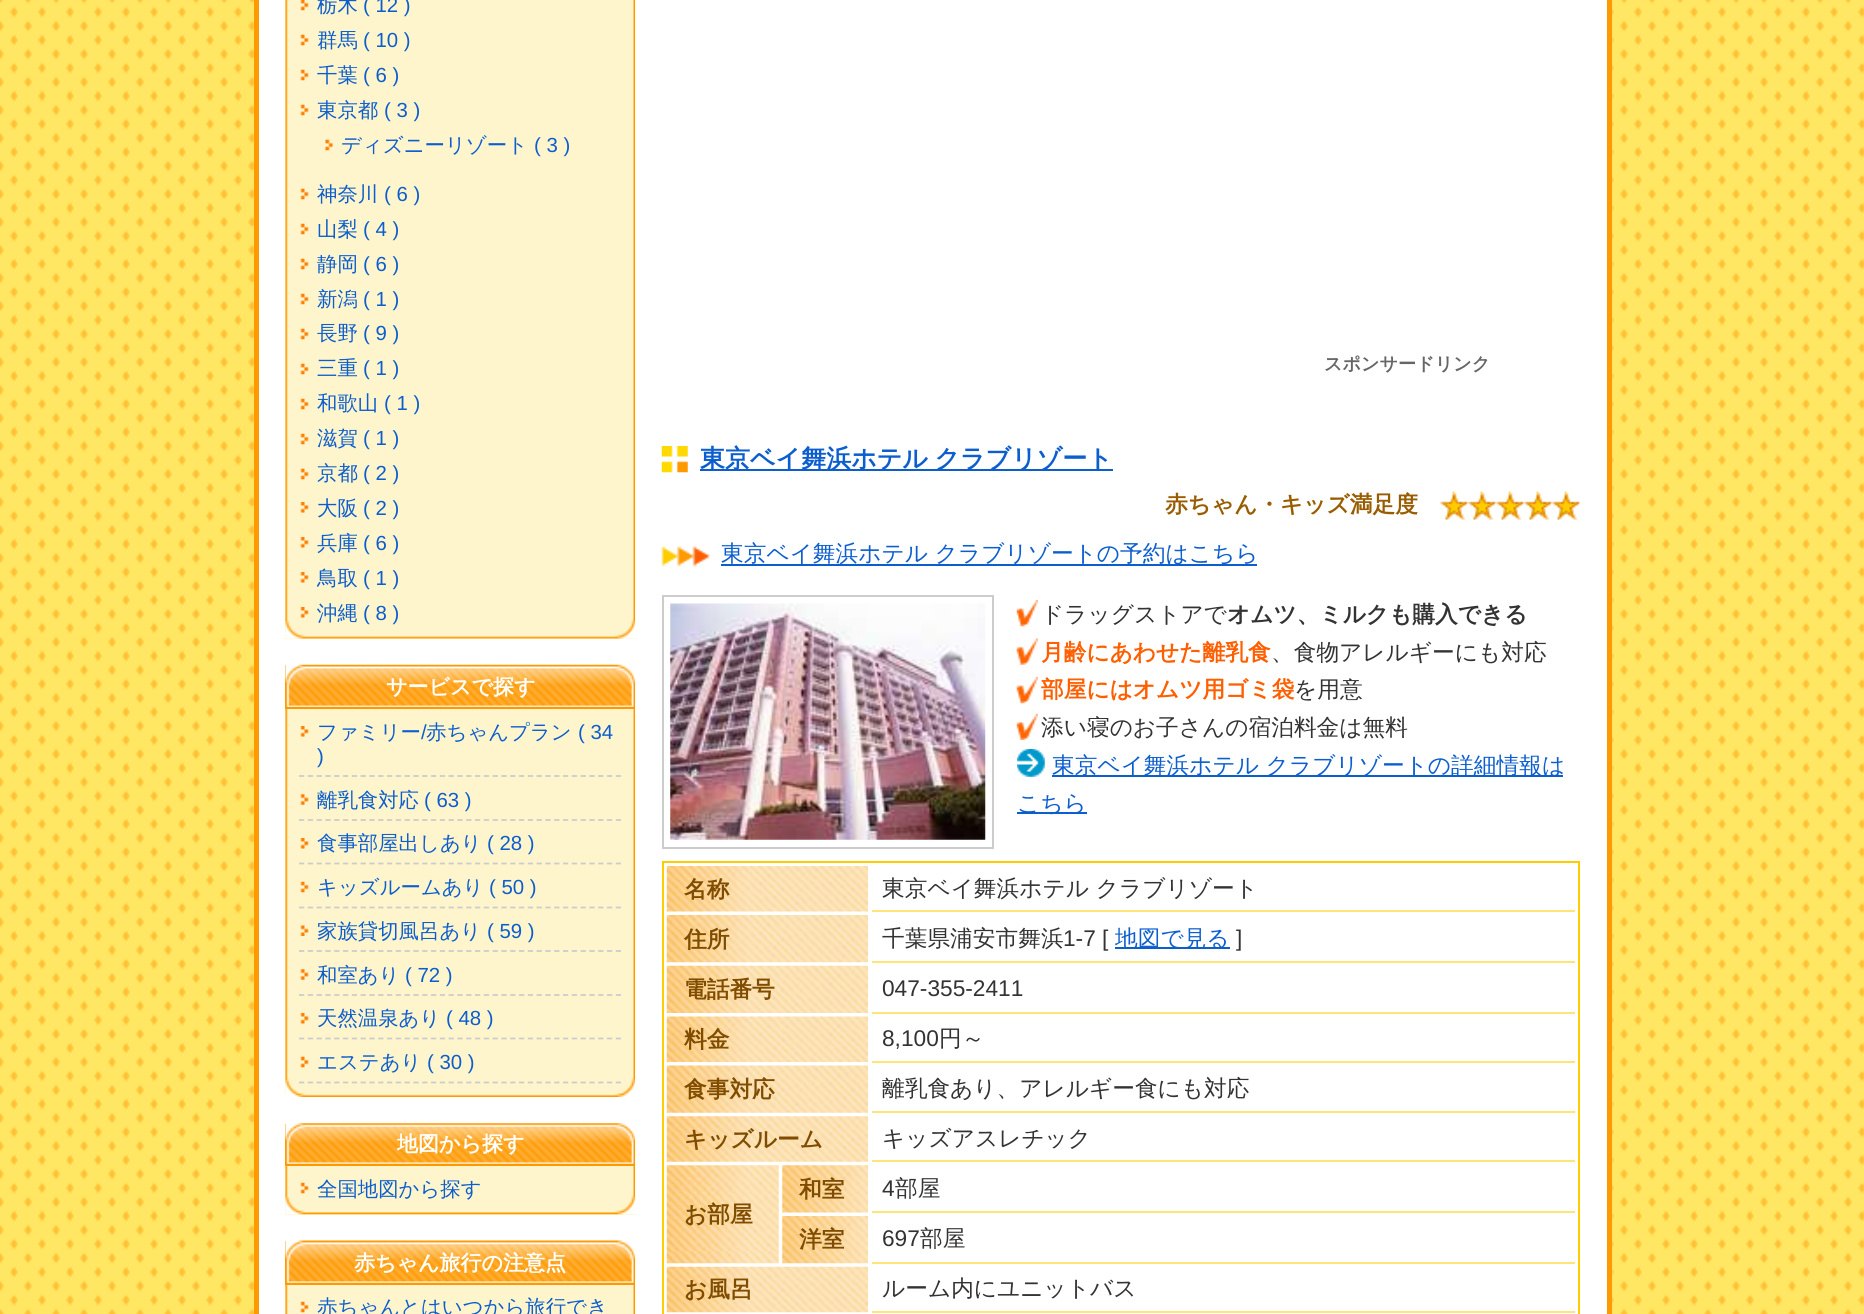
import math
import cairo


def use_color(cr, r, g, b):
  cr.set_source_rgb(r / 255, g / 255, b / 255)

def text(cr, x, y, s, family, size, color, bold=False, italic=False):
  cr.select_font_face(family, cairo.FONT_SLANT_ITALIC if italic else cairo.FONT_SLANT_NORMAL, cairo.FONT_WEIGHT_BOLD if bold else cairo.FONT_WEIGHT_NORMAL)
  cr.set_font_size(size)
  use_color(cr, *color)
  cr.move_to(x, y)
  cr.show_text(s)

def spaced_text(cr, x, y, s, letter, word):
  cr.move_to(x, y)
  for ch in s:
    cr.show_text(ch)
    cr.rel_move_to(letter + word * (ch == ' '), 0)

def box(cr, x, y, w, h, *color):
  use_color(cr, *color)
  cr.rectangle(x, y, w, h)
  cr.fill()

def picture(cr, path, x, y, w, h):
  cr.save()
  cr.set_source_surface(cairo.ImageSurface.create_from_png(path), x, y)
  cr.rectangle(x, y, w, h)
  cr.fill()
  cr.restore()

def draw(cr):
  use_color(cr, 255, 255, 255)
  cr.paint()
  picture(cr, "img_01.png", 0, 0, 1864, 1314)
  use_color(cr, 255, 255, 255)
  cr.rectangle(256.5, -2.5, 1353, 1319)
  cr.fill_preserve()
  use_color(cr, 255, 153, 0)
  cr.set_line_width(5)
  cr.stroke()
  box(cr, 285, 0, 350, 639, 255, 245, 204)
  picture(cr, "img_02.png", 285, 0, 351, 639)
  picture(cr, "img_03.png", 300, 0, 9, 11)
  picture(cr, "img_04.png", 300, 34, 9, 12)
  picture(cr, "img_04.png", 300, 69, 9, 12)
  picture(cr, "img_04.png", 300, 104, 9, 12)
  picture(cr, "img_05.png", 325, 139, 8, 12)
  picture(cr, "img_04.png", 300, 188, 9, 12)
  picture(cr, "img_04.png", 300, 223, 9, 12)
  picture(cr, "img_04.png", 300, 258, 9, 12)
  picture(cr, "img_04.png", 300, 293, 9, 12)
  picture(cr, "img_04.png", 300, 328, 9, 12)
  picture(cr, "img_04.png", 300, 363, 9, 12)
  picture(cr, "img_04.png", 300, 398, 9, 12)
  picture(cr, "img_04.png", 300, 433, 9, 12)
  picture(cr, "img_04.png", 300, 468, 9, 12)
  picture(cr, "img_06.png", 300, 502, 9, 11)
  picture(cr, "img_06.png", 300, 537, 9, 11)
  picture(cr, "img_06.png", 300, 572, 9, 11)
  picture(cr, "img_06.png", 300, 607, 9, 11)
  box(cr, 285, 665, 350, 42, 255, 153, 0)
  picture(cr, "img_07.png", 285, 664, 351, 43)
  box(cr, 285, 709, 1, 388, 255, 245, 204)
  picture(cr, "img_08.png", 285, 706, 351, 391)
  box(cr, 285, 707, 350, 2, 255, 153, 0)
  picture(cr, "img_06.png", 300, 726, 9, 11)
  cr.new_path()
  cr.move_to(299, 776)
  cr.line_to(621, 776)
  use_color(cr, 204, 204, 204)
  cr.set_line_width(1.8)
  cr.set_dash([5.25, 3.55])
  cr.stroke()
  picture(cr, "img_09.png", 300, 794, 9, 11)
  cr.new_path()
  cr.move_to(299, 820)
  cr.line_to(621, 820)
  cr.stroke()
  picture(cr, "img_06.png", 300, 838, 9, 11)
  cr.new_path()
  cr.move_to(299, 863.5)
  cr.line_to(621, 863.5)
  cr.stroke()
  picture(cr, "img_04.png", 300, 881, 9, 12)
  cr.new_path()
  cr.move_to(299, 907.5)
  cr.line_to(621, 907.5)
  cr.stroke()
  picture(cr, "img_10.png", 300, 925, 9, 11)
  cr.new_path()
  cr.move_to(299, 951)
  cr.line_to(621, 951)
  cr.stroke()
  picture(cr, "img_09.png", 300, 969, 9, 11)
  cr.new_path()
  cr.move_to(299, 995)
  cr.line_to(621, 995)
  cr.stroke()
  picture(cr, "img_06.png", 300, 1013, 9, 11)
  cr.new_path()
  cr.move_to(299, 1038.5)
  cr.line_to(621, 1038.5)
  cr.stroke()
  picture(cr, "img_04.png", 300, 1056, 9, 12)
  cr.new_path()
  cr.move_to(299, 1082.5)
  cr.line_to(621, 1082.5)
  cr.stroke()
  box(cr, 285, 1124, 350, 40, 255, 153, 0)
  picture(cr, "img_11.png", 285, 1123, 351, 41)
  box(cr, 285, 1166, 350, 49, 255, 245, 204)
  picture(cr, "img_12.png", 285, 1163, 351, 52)
  box(cr, 285, 1164, 350, 2, 255, 153, 0)
  picture(cr, "img_04.png", 300, 1182, 9, 12)
  box(cr, 285, 1241, 350, 42, 255, 153, 0)
  picture(cr, "img_13.png", 285, 1240, 351, 43)
  box(cr, 285, 1285, 1, 29, 255, 245, 204)
  picture(cr, "img_14.png", 285, 1282, 351, 32)
  box(cr, 285, 1283, 350, 2, 255, 153, 0)
  picture(cr, "img_04.png", 300, 1301, 9, 12)
  picture(cr, "img_15.png", 661, 446, 27, 27)
  box(cr, 700, 469, 413, 2, 12, 94, 206)
  picture(cr, "img_16.png", 1440, 491, 29, 29)
  picture(cr, "img_17.png", 1468, 491, 29, 29)
  picture(cr, "img_18.png", 1496, 491, 29, 29)
  picture(cr, "img_17.png", 1524, 491, 29, 29)
  picture(cr, "img_19.png", 1552, 491, 29, 29)
  picture(cr, "img_20.png", 661, 545, 50, 22)
  box(cr, 721, 564, 536, 2, 12, 94, 206)
  cr.rectangle(663, 596, 330, 252)
  use_color(cr, 204, 204, 204)
  cr.set_line_width(2)
  cr.set_dash([])
  cr.stroke()
  picture(cr, "img_21.png", 670, 603, 316, 237)
  picture(cr, "img_22.png", 1016, 600, 22, 27)
  picture(cr, "img_23.png", 1016, 638, 22, 27)
  picture(cr, "img_22.png", 1016, 677, 22, 27)
  picture(cr, "img_24.png", 1016, 713, 22, 27)
  picture(cr, "img_25.png", 1017, 749, 28, 28)
  box(cr, 1052, 775, 511, 2, 12, 94, 206)
  box(cr, 1017, 812, 70, 2, 12, 94, 206)
  cr.rectangle(663, 862, 916, 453)
  use_color(cr, 255, 204, 0)
  cr.stroke()
  picture(cr, "img_26.png", 666, 866, 202, 46)
  box(cr, 872, 910, 703, 2, 255, 228, 122)
  picture(cr, "img_27.png", 666, 915, 202, 48)
  box(cr, 872, 961, 703, 2, 255, 228, 122)
  box(cr, 1115, 947, 115, 2, 12, 94, 206)
  picture(cr, "img_28.png", 666, 965, 202, 48)
  box(cr, 872, 1012, 703, 2, 255, 228, 122)
  picture(cr, "img_29.png", 666, 1016, 202, 46)
  box(cr, 872, 1061, 703, 2, 255, 228, 122)
  picture(cr, "img_30.png", 666, 1065, 202, 48)
  box(cr, 872, 1111, 703, 2, 255, 228, 122)
  picture(cr, "img_31.png", 666, 1116, 202, 46)
  box(cr, 872, 1160, 703, 2, 255, 228, 122)
  picture(cr, "img_32.png", 782, 1165, 86, 48)
  box(cr, 872, 1211, 703, 2, 255, 228, 122)
  picture(cr, "img_33.png", 666, 1165, 113, 99)
  picture(cr, "img_34.png", 782, 1216, 86, 48)
  box(cr, 872, 1262, 703, 2, 255, 228, 122)
  picture(cr, "img_35.png", 666, 1266, 202, 47)
  box(cr, 872, 1311, 703, 2, 255, 228, 122)
  text(cr, 317, 12, "栃木", "WenQuanYi Zen Hei Medium", 20.4, (12, 94, 206))
  text(cr, 363, 12, "( 12 )", "Liberation Sans", 20.4, (12, 94, 206))
  text(cr, 317, 47, "群馬", "WenQuanYi Zen Hei Medium", 20.4, (12, 94, 206))
  text(cr, 363, 47, "( 10 )", "Liberation Sans", 20.4, (12, 94, 206))
  text(cr, 317, 82, "千葉", "WenQuanYi Zen Hei Medium", 20.4, (12, 94, 206))
  text(cr, 363, 82, "( 6 )", "Liberation Sans", 20.4, (12, 94, 206))
  text(cr, 317, 117, "東京都", "WenQuanYi Zen Hei Medium", 20.4, (12, 94, 206))
  text(cr, 384, 117, "( 3 )", "Liberation Sans", 20.4, (12, 94, 206))
  text(cr, 341, 152, "ディズニーリゾート", "WenQuanYi Zen Hei Medium", 20.4, (12, 94, 206))
  text(cr, 534, 152, "( 3 )", "Liberation Sans", 20.4, (12, 94, 206))
  text(cr, 317, 201, "神奈川", "WenQuanYi Zen Hei Medium", 20.4, (12, 94, 206))
  text(cr, 384, 201, "( 6 )", "Liberation Sans", 20.4, (12, 94, 206))
  text(cr, 317, 236, "山梨", "WenQuanYi Zen Hei Medium", 20.4, (12, 94, 206))
  text(cr, 363, 236, "( 4 )", "Liberation Sans", 20.4, (12, 94, 206))
  text(cr, 317, 271, "静岡", "WenQuanYi Zen Hei Medium", 20.4, (12, 94, 206))
  text(cr, 363, 271, "( 6 )", "Liberation Sans", 20.4, (12, 94, 206))
  text(cr, 317, 306, "新潟", "WenQuanYi Zen Hei Medium", 20.4, (12, 94, 206))
  text(cr, 363, 306, "( 1 )", "Liberation Sans", 20.4, (12, 94, 206))
  text(cr, 317, 340, "長野", "WenQuanYi Zen Hei Medium", 20.4, (12, 94, 206))
  text(cr, 363, 340, "( 9 )", "Liberation Sans", 20.4, (12, 94, 206))
  text(cr, 317, 375, "三重", "WenQuanYi Zen Hei Medium", 20.4, (12, 94, 206))
  text(cr, 363, 375, "( 1 )", "Liberation Sans", 20.4, (12, 94, 206))
  text(cr, 317, 410, "和歌山", "WenQuanYi Zen Hei Medium", 20.4, (12, 94, 206))
  text(cr, 384, 410, "( 1 )", "Liberation Sans", 20.4, (12, 94, 206))
  text(cr, 317, 445, "滋賀", "WenQuanYi Zen Hei Medium", 20.4, (12, 94, 206))
  text(cr, 363, 445, "( 1 )", "Liberation Sans", 20.4, (12, 94, 206))
  text(cr, 317, 480, "京都", "WenQuanYi Zen Hei Medium", 20.4, (12, 94, 206))
  text(cr, 363, 480, "( 2 )", "Liberation Sans", 20.4, (12, 94, 206))
  text(cr, 317, 515, "大阪", "WenQuanYi Zen Hei Medium", 20.4, (12, 94, 206))
  text(cr, 363, 515, "( 2 )", "Liberation Sans", 20.4, (12, 94, 206))
  text(cr, 317, 550, "兵庫", "WenQuanYi Zen Hei Medium", 20.4, (12, 94, 206))
  text(cr, 363, 550, "( 6 )", "Liberation Sans", 20.4, (12, 94, 206))
  text(cr, 317, 585, "鳥取", "WenQuanYi Zen Hei Medium", 20.4, (12, 94, 206))
  text(cr, 363, 585, "( 1 )", "Liberation Sans", 20.4, (12, 94, 206))
  text(cr, 317, 620, "沖縄", "WenQuanYi Zen Hei Medium", 20.4, (12, 94, 206))
  text(cr, 363, 620, "( 8 )", "Liberation Sans", 20.4, (12, 94, 206))
  text(cr, 386, 694, "サービスで探す", "WenQuanYi Zen Hei", 21, (255, 255, 255), bold=True)
  text(cr, 317, 739, "ファミリー", "WenQuanYi Zen Hei Medium", 20.4, (12, 94, 206))
  text(cr, 421, 739, "/", "Liberation Sans", 20.4, (12, 94, 206))
  text(cr, 426, 739, "赤ちゃんプラン", "WenQuanYi Zen Hei Medium", 20.4, (12, 94, 206))
  text(cr, 578, 739, "( 34", "Liberation Sans", 20.4, (12, 94, 206))
  text(cr, 317, 763, ")", "Liberation Sans", 20.4, (12, 94, 206))
  text(cr, 317, 807, "離乳食対応", "WenQuanYi Zen Hei Medium", 20.4, (12, 94, 206))
  text(cr, 424, 807, "( 63 )", "Liberation Sans", 20.4, (12, 94, 206))
  text(cr, 317, 850, "食事部屋出しあり", "WenQuanYi Zen Hei Medium", 20.4, (12, 94, 206))
  text(cr, 487, 850, "( 28 )", "Liberation Sans", 20.4, (12, 94, 206))
  text(cr, 317, 894, "キッズルームあり", "WenQuanYi Zen Hei Medium", 20.4, (12, 94, 206))
  text(cr, 489, 894, "( 50 )", "Liberation Sans", 20.4, (12, 94, 206))
  text(cr, 317, 938, "家族貸切風呂あり", "WenQuanYi Zen Hei Medium", 20.4, (12, 94, 206))
  text(cr, 487, 938, "( 59 )", "Liberation Sans", 20.4, (12, 94, 206))
  text(cr, 317, 982, "和室あり", "WenQuanYi Zen Hei Medium", 20.4, (12, 94, 206))
  text(cr, 405, 982, "( 72 )", "Liberation Sans", 20.4, (12, 94, 206))
  text(cr, 317, 1025, "天然温泉あり", "WenQuanYi Zen Hei Medium", 20.4, (12, 94, 206))
  text(cr, 446, 1025, "( 48 )", "Liberation Sans", 20.4, (12, 94, 206))
  text(cr, 317, 1069, "エステあり", "WenQuanYi Zen Hei Medium", 20.4, (12, 94, 206))
  text(cr, 427, 1069, "( 30 )", "Liberation Sans", 20.4, (12, 94, 206))
  text(cr, 397, 1151, "地図から探す", "WenQuanYi Zen Hei", 21, (255, 255, 255), bold=True)
  text(cr, 317, 1196, "全国地図から探す", "WenQuanYi Zen Hei Medium", 20.4, (12, 94, 206))
  text(cr, 354, 1270, "赤ちゃん旅行の注意点", "WenQuanYi Zen Hei", 21, (255, 255, 255), bold=True)
  text(cr, 317, 1314, "赤ちゃんとはいつから旅行でき", "WenQuanYi Zen Hei Medium", 20.4, (12, 94, 206))
  text(cr, 1324, 370, "スポンサードリンク", "WenQuanYi Zen Hei", 18.1, (102, 102, 102), bold=True)
  cr.set_font_size(25)
  use_color(cr, 12, 94, 206)
  spaced_text(cr, 700, 467, "東京ベイ舞浜ホテル クラブリゾート", 0, -1)
  text(cr, 1165, 512, "赤ちゃん・キッズ満足度", "WenQuanYi Zen Hei", 22.7, (153, 92, 0), bold=True)
  text(cr, 721, 561, "東京ベイ舞浜ホテル クラブリゾートの予約はこちら", "WenQuanYi Zen Hei Medium", 22.7, (12, 94, 206))
  text(cr, 1041, 622, "ドラッグストアで", "WenQuanYi Zen Hei Medium", 22.7, (51, 51, 51))
  text(cr, 1227, 622, "オムツ、ミルクも購入できる", "WenQuanYi Zen Hei", 22.7, (51, 51, 51), bold=True)
  text(cr, 1041, 660, "月齢にあわせた離乳食", "WenQuanYi Zen Hei", 22.7, (255, 95, 0), bold=True)
  text(cr, 1271, 660, "、食物アレルギーにも対応", "WenQuanYi Zen Hei Medium", 22.7, (51, 51, 51))
  text(cr, 1041, 697, "部屋にはオムツ用ゴミ袋", "WenQuanYi Zen Hei", 22.7, (255, 95, 0), bold=True)
  text(cr, 1294, 697, "を用意", "WenQuanYi Zen Hei Medium", 22.7, (51, 51, 51))
  text(cr, 1041, 735, "添い寝のお子さんの宿泊料金は無料", "WenQuanYi Zen Hei Medium", 22.7, (51, 51, 51))
  text(cr, 1052, 773, "東京ベイ舞浜ホテル クラブリゾートの詳細情報は", "WenQuanYi Zen Hei Medium", 22.7, (12, 94, 206))
  text(cr, 1017, 811, "こちら", "WenQuanYi Zen Hei Medium", 22.7, (12, 94, 206))
  text(cr, 684, 897, "名称", "WenQuanYi Zen Hei", 22.7, (128, 77, 0), bold=True)
  text(cr, 882, 896, "東京ベイ舞浜ホテル クラブリゾート", "WenQuanYi Zen Hei Medium", 22.7, (51, 51, 51))
  text(cr, 684, 947, "住所", "WenQuanYi Zen Hei", 22.7, (128, 77, 0), bold=True)
  text(cr, 882, 946, "千葉県浦安市舞浜", "WenQuanYi Zen Hei Medium", 22.7, (51, 51, 51))
  text(cr, 1063, 946, "1-7 [", "Liberation Sans", 22.7, (51, 51, 51))
  text(cr, 1115, 946, "地図で見る", "WenQuanYi Zen Hei Medium", 22.7, (12, 94, 206))
  text(cr, 1236, 946, "]", "Liberation Sans", 22.7, (51, 51, 51))
  text(cr, 684, 997, "電話番号", "WenQuanYi Zen Hei", 22.7, (128, 77, 0), bold=True)
  text(cr, 882, 996, "047-355-2411", "Liberation Sans", 22.7, (51, 51, 51))
  text(cr, 684, 1047, "料金", "WenQuanYi Zen Hei", 22.7, (128, 77, 0), bold=True)
  text(cr, 882, 1046, "8,100", "Liberation Sans", 22.7, (51, 51, 51))
  text(cr, 939, 1046, "円～", "WenQuanYi Zen Hei Medium", 22.7, (51, 51, 51))
  text(cr, 684, 1097, "食事対応", "WenQuanYi Zen Hei", 22.7, (128, 77, 0), bold=True)
  text(cr, 882, 1096, "離乳食あり、アレルギー食にも対応", "WenQuanYi Zen Hei Medium", 22.7, (51, 51, 51))
  text(cr, 684, 1147, "キッズルーム", "WenQuanYi Zen Hei", 22.7, (128, 77, 0), bold=True)
  text(cr, 882, 1146, "キッズアスレチック", "WenQuanYi Zen Hei Medium", 22.7, (51, 51, 51))
  text(cr, 799, 1197, "和室", "WenQuanYi Zen Hei", 22.7, (128, 77, 0), bold=True)
  text(cr, 882, 1196, "4", "Liberation Sans", 22.7, (51, 51, 51))
  text(cr, 895, 1196, "部屋", "WenQuanYi Zen Hei Medium", 22.7, (51, 51, 51))
  text(cr, 684, 1222, "お部屋", "WenQuanYi Zen Hei", 22.7, (128, 77, 0), bold=True)
  text(cr, 799, 1247, "洋室", "WenQuanYi Zen Hei", 22.7, (128, 77, 0), bold=True)
  text(cr, 882, 1246, "697", "Liberation Sans", 22.7, (51, 51, 51))
  text(cr, 920, 1246, "部屋", "WenQuanYi Zen Hei Medium", 22.7, (51, 51, 51))
  text(cr, 684, 1297, "お風呂", "WenQuanYi Zen Hei", 22.7, (128, 77, 0), bold=True)
  text(cr, 882, 1296, "ルーム内にユニットバス", "WenQuanYi Zen Hei Medium", 22.7, (51, 51, 51))


surface = cairo.ImageSurface(cairo.FORMAT_RGB24, 1864, 1314)
cr = cairo.Context(surface)
options = cairo.FontOptions()
options.set_hint_metrics(cairo.HINT_METRICS_OFF)
options.set_hint_style(cairo.HINT_STYLE_NONE)
cr.set_font_options(options)
cr.set_miter_limit(4)
draw(cr)
surface.write_to_png("out.png")
